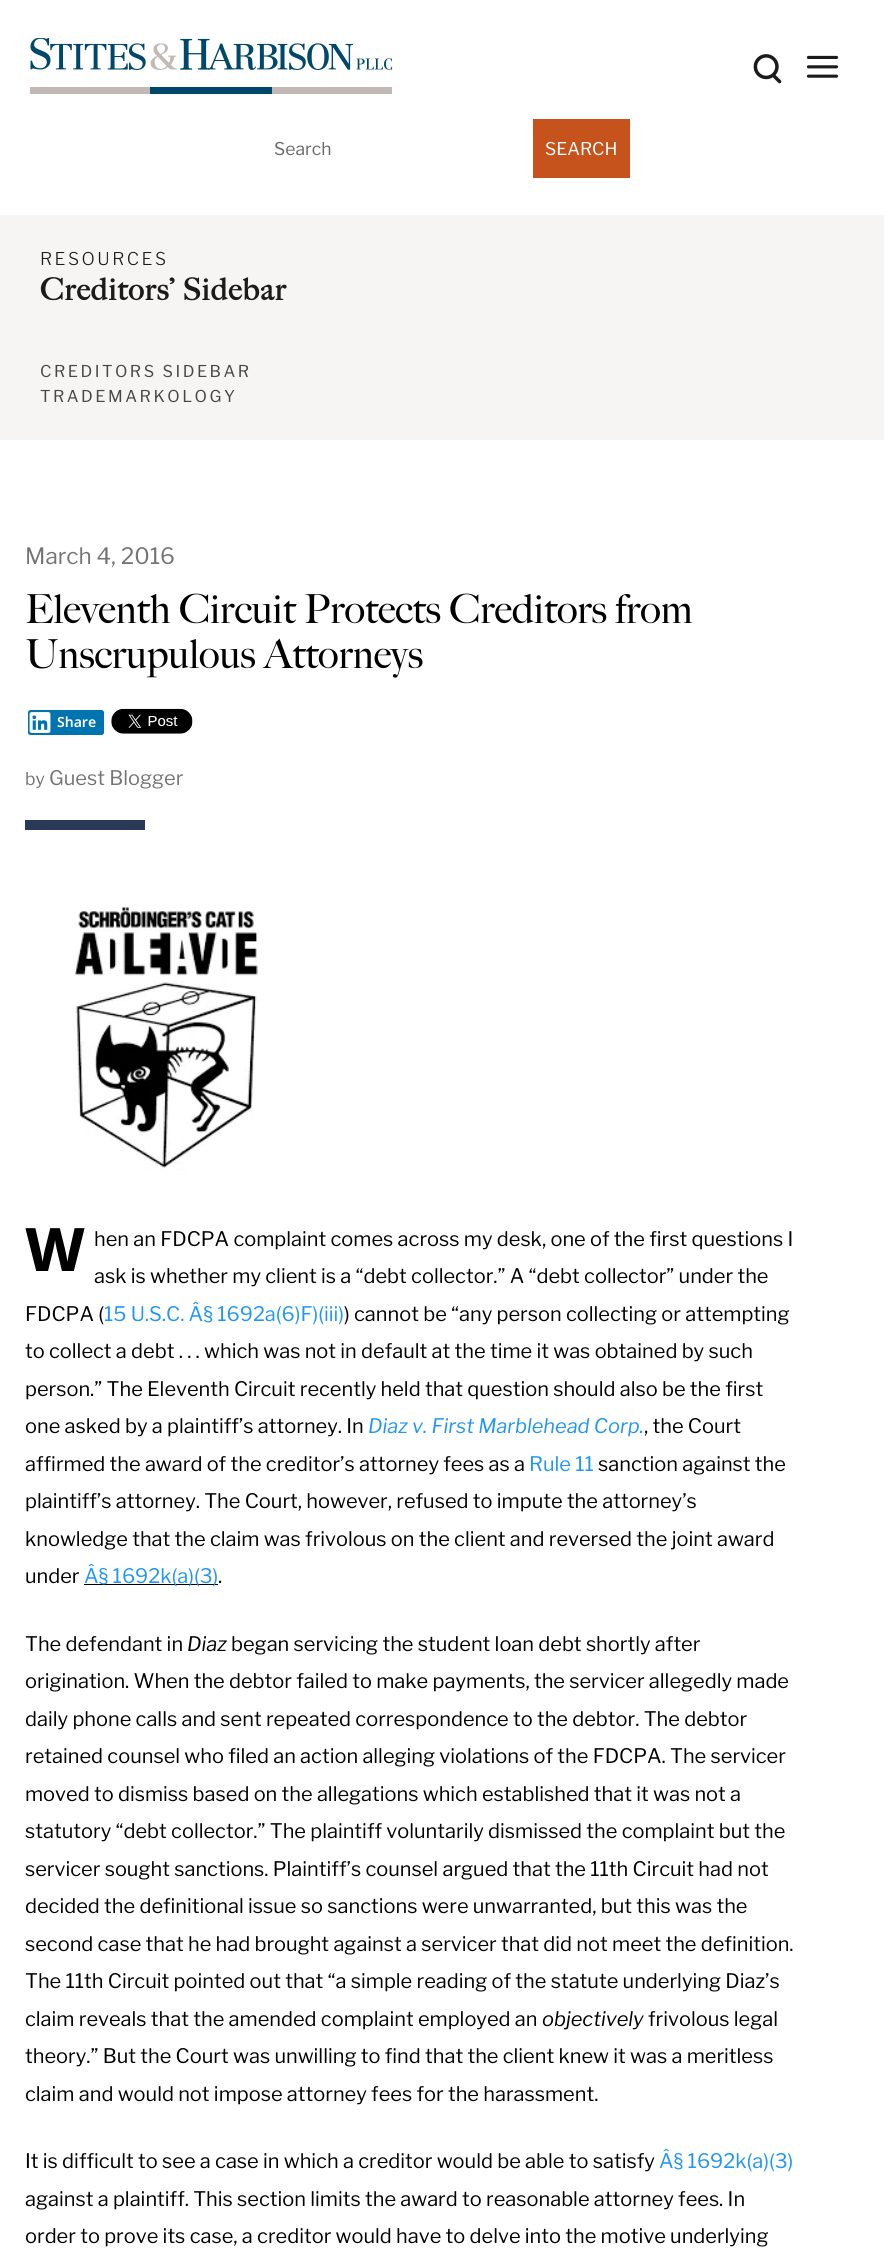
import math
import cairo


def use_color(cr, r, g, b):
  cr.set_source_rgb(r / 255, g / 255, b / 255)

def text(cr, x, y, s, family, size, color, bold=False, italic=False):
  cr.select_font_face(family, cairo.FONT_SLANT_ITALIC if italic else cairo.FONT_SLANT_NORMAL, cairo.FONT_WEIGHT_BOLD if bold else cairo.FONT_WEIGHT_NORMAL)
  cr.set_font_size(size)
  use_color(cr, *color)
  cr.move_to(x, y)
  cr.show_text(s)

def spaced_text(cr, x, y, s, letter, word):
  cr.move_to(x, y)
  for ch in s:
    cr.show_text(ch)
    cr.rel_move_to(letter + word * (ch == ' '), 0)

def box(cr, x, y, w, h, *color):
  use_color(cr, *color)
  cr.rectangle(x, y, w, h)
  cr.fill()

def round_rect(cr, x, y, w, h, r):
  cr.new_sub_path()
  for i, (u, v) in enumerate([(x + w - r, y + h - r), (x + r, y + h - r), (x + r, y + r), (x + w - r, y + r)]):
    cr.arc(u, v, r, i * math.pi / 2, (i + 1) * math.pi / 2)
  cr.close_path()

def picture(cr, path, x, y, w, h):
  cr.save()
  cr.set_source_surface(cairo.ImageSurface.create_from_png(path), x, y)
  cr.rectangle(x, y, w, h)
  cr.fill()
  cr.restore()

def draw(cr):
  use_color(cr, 255, 255, 255)
  cr.paint()
  picture(cr, "img_01.png", 30, 38, 363, 56)
  picture(cr, "img_02.png", 806, 55, 33, 23)
  picture(cr, "img_03.png", 753, 54, 29, 30)
  box(cr, 533, 119, 97, 59, 198, 83, 28)
  box(cr, 0, 215, 884, 225, 246, 245, 244)
  use_color(cr, 0, 115, 177)
  round_rect(cr, 28, 710, 76, 25, 2.5)
  cr.fill()
  picture(cr, "img_04.png", 29, 712, 22, 21)
  picture(cr, "img_05.png", 111, 708, 82, 26)
  box(cr, 25, 820, 120, 10, 43, 57, 88)
  picture(cr, "img_06.png", 74, 907, 186, 264)
  box(cr, 84, 1584, 134, 1, 0, 0, 0)
  text(cr, 274, 155, "Search", "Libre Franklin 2 Thin", 17.5, (102, 102, 102))
  text(cr, 545, 155, "SEARCH", "Libre Franklin 2 Thin", 17.5, (255, 255, 255))
  cr.select_font_face("Libre Franklin Thin")
  use_color(cr, 27, 27, 27)
  spaced_text(cr, 40, 265, "RESOURCES", 2.5, 0)
  cr.select_font_face("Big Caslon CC", cairo.FONT_SLANT_NORMAL, cairo.FONT_WEIGHT_BOLD)
  cr.set_font_size(30)
  spaced_text(cr, 40, 300, "Creditors’ Sidebar", 1.25, 0)
  cr.select_font_face("Libre Franklin 2 Thin")
  cr.set_font_size(16.25)
  use_color(cr, 72, 71, 71)
  spaced_text(cr, 40, 377, "CREDITORS SIDEBAR", 2.5, 0)
  spaced_text(cr, 40, 402, "TRADEMARKOLOGY", 2.5, 0)
  text(cr, 25, 564, "March 4, 2016", "Libre Franklin 2 Thin", 22.5, (117, 115, 115))
  text(cr, 25, 623, "Eleventh Circuit Protects Creditors from", "Big Caslon CC", 40, (0, 0, 0))
  text(cr, 25, 668, "Unscrupulous Attorneys", "Big Caslon CC", 40, (0, 0, 0))
  text(cr, 57, 727, "Share", "Noto Sans SemiBold", 14, (255, 255, 255))
  text(cr, 25, 785, "by", "Libre Franklin 2 Thin", 17.5, (117, 115, 115))
  text(cr, 49, 785, "Guest Blogger", "Libre Franklin 2 Thin", 20, (117, 115, 115))
  text(cr, 25, 1271, "W", "Noto Sans ExtraBold", 60, (0, 0, 0))
  text(cr, 94, 1246, "hen an FDCPA complaint comes across my desk, one of the first questions I", "Libre Franklin 2 Thin", 20, (0, 0, 0))
  text(cr, 94, 1283, "ask is whether my client is a “debt collector.” A “debt collector” under the", "Libre Franklin 2 Thin", 20, (0, 0, 0))
  text(cr, 25, 1321, "FDCPA (", "Libre Franklin 2 Thin", 20, (0, 0, 0))
  text(cr, 104, 1321, "15 U.S.C. Â§ 1692a(6)F)(iii)", "Libre Franklin 2 Thin", 20, (33, 150, 243))
  text(cr, 344, 1321, ") cannot be “any person collecting or attempting", "Libre Franklin 2 Thin", 20, (0, 0, 0))
  text(cr, 25, 1358, "to collect a debt . . . which was not in default at the time it was obtained by such", "Libre Franklin 2 Thin", 20, (0, 0, 0))
  text(cr, 25, 1396, "person.” The Eleventh Circuit recently held that question should also be the first", "Libre Franklin 2 Thin", 20, (0, 0, 0))
  text(cr, 25, 1433, "one asked by a plaintiff’s attorney. In", "Libre Franklin 2 Thin", 20, (0, 0, 0))
  text(cr, 368, 1433, "Diaz v. First Marblehead Corp.", "Libre Franklin Thin", 20, (33, 150, 243), italic=True)
  text(cr, 644, 1433, ", the Court", "Libre Franklin 2 Thin", 20, (0, 0, 0))
  text(cr, 25, 1471, "affirmed the award of the creditor’s attorney fees as a", "Libre Franklin 2 Thin", 20, (0, 0, 0))
  text(cr, 529, 1471, "Rule 11", "Libre Franklin 2 Thin", 20, (33, 150, 243))
  text(cr, 598, 1471, "sanction against the", "Libre Franklin 2 Thin", 20, (0, 0, 0))
  text(cr, 25, 1508, "plaintiff’s attorney. The Court, however, refused to impute the attorney’s", "Libre Franklin 2 Thin", 20, (0, 0, 0))
  text(cr, 25, 1546, "knowledge that the claim was frivolous on the client and reversed the joint award", "Libre Franklin 2 Thin", 20, (0, 0, 0))
  text(cr, 25, 1583, "under", "Libre Franklin 2 Thin", 20, (0, 0, 0))
  text(cr, 84, 1583, "Â§ 1692k(a)(3)", "Libre Franklin 2 Thin", 20, (33, 150, 243))
  text(cr, 218, 1583, ".", "Libre Franklin 2 Thin", 20, (0, 0, 0))
  text(cr, 25, 1651, "The defendant in", "Libre Franklin 2 Thin", 20, (0, 0, 0))
  text(cr, 187, 1651, "Diaz", "Libre Franklin Thin", 20, (0, 0, 0), italic=True)
  text(cr, 231, 1651, "began servicing the student loan debt shortly after", "Libre Franklin 2 Thin", 20, (0, 0, 0))
  text(cr, 25, 1688, "origination. When the debtor failed to make payments, the servicer allegedly made", "Libre Franklin 2 Thin", 20, (0, 0, 0))
  text(cr, 25, 1726, "daily phone calls and sent repeated correspondence to the debtor. The debtor", "Libre Franklin 2 Thin", 20, (0, 0, 0))
  text(cr, 25, 1763, "retained counsel who filed an action alleging violations of the FDCPA. The servicer", "Libre Franklin 2 Thin", 20, (0, 0, 0))
  text(cr, 25, 1801, "moved to dismiss based on the allegations which established that it was not a", "Libre Franklin 2 Thin", 20, (0, 0, 0))
  text(cr, 25, 1838, "statutory “debt collector.” The plaintiff voluntarily dismissed the complaint but the", "Libre Franklin 2 Thin", 20, (0, 0, 0))
  text(cr, 25, 1876, "servicer sought sanctions. Plaintiff’s counsel argued that the 11th Circuit had not", "Libre Franklin 2 Thin", 20, (0, 0, 0))
  text(cr, 25, 1913, "decided the definitional issue so sanctions were unwarranted, but this was the", "Libre Franklin 2 Thin", 20, (0, 0, 0))
  text(cr, 25, 1951, "second case that he had brought against a servicer that did not meet the definition.", "Libre Franklin 2 Thin", 20, (0, 0, 0))
  text(cr, 25, 1988, "The 11th Circuit pointed out that “a simple reading of the statute underlying Diaz’s", "Libre Franklin 2 Thin", 20, (0, 0, 0))
  text(cr, 25, 2026, "claim reveals that the amended complaint employed an", "Libre Franklin 2 Thin", 20, (0, 0, 0))
  text(cr, 542, 2026, "objectively", "Libre Franklin Thin", 20, (0, 0, 0), italic=True)
  text(cr, 648, 2026, "frivolous legal", "Libre Franklin 2 Thin", 20, (0, 0, 0))
  text(cr, 25, 2063, "theory.” But the Court was unwilling to find that the client knew it was a meritless", "Libre Franklin 2 Thin", 20, (0, 0, 0))
  text(cr, 25, 2101, "claim and would not impose attorney fees for the harassment.", "Libre Franklin 2 Thin", 20, (0, 0, 0))
  text(cr, 25, 2168, "It is difficult to see a case in which a creditor would be able to satisfy", "Libre Franklin 2 Thin", 20, (0, 0, 0))
  text(cr, 659, 2168, "Â§ 1692k(a)(3)", "Libre Franklin 2 Thin", 20, (33, 150, 243))
  text(cr, 25, 2206, "against a plaintiff. This section limits the award to reasonable attorney fees. In", "Libre Franklin 2 Thin", 20, (0, 0, 0))
  text(cr, 25, 2243, "order to prove its case, a creditor would have to delve into the motive underlying", "Libre Franklin 2 Thin", 20, (0, 0, 0))


surface = cairo.ImageSurface(cairo.FORMAT_RGB24, 884, 2261)
cr = cairo.Context(surface)
options = cairo.FontOptions()
options.set_hint_metrics(cairo.HINT_METRICS_OFF)
options.set_hint_style(cairo.HINT_STYLE_NONE)
cr.set_font_options(options)
cr.set_miter_limit(4)
draw(cr)
surface.write_to_png("out.png")
